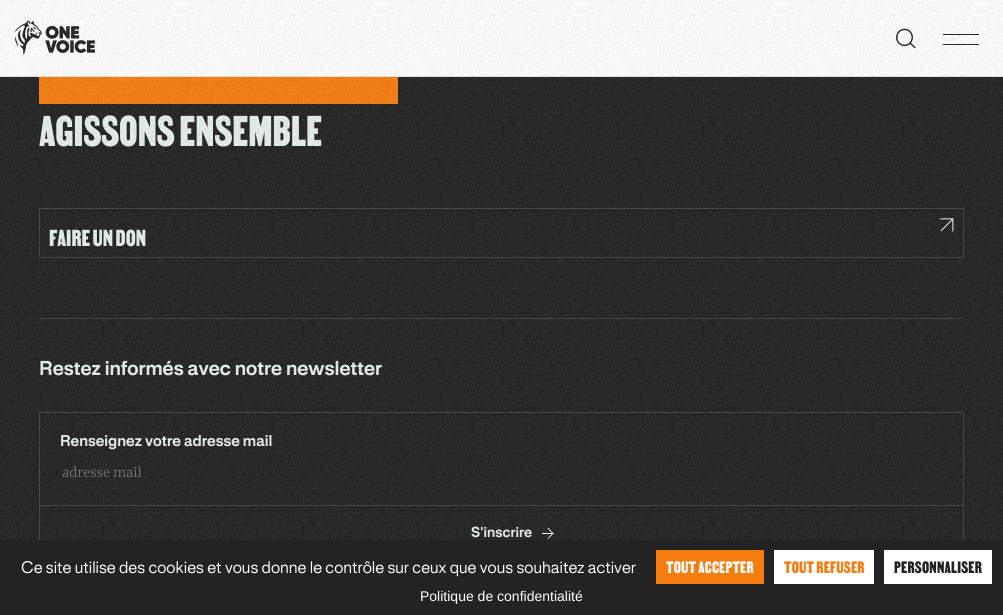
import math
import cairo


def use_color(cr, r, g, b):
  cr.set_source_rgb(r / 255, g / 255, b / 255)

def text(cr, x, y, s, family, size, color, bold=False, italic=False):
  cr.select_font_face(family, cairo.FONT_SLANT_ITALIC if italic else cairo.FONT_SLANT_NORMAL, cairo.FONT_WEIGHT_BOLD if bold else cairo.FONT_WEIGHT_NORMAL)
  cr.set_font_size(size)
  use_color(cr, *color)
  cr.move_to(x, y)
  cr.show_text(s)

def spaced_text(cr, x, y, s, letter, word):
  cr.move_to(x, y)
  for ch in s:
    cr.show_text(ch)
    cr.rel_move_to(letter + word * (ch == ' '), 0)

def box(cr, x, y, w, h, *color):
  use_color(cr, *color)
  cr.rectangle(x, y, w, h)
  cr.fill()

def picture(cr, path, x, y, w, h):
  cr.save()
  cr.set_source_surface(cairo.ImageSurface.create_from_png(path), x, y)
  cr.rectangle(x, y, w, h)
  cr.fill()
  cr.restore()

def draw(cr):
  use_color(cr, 35, 35, 35)
  cr.paint()
  box(cr, 0, 0, 1003, 76, 255, 255, 255)
  picture(cr, "img_01.png", 15, 20, 80, 35)
  picture(cr, "img_02.png", 896, 28, 20, 21)
  box(cr, 943, 34, 36, 1, 35, 35, 35)
  box(cr, 943, 44, 36, 1, 35, 35, 35)
  box(cr, 0, 76, 1003, 1, 230, 230, 230)
  box(cr, 39, 77, 359, 27, 245, 125, 16)
  picture(cr, "img_04.png", 940, 218, 14, 14)
  cr.rectangle(39.5, 208.5, 924, 49)
  use_color(cr, 68, 69, 69)
  cr.set_line_width(1)
  cr.stroke()
  box(cr, 39, 318, 925, 1, 68, 69, 69)
  cr.rectangle(39.5, 412.5, 924, 146)
  cr.stroke()
  box(cr, 40, 505, 923, 1, 68, 69, 69)
  use_color(cr, 255, 255, 255)
  cr.new_path()
  cr.move_to(548, 527.5)
  cr.line_to(553.5, 533.5)
  cr.line_to(553, 534)
  cr.line_to(547.5, 528.5)
  cr.close_path()
  cr.fill()
  cr.new_path()
  cr.move_to(553, 532.5)
  cr.line_to(553.5, 533.5)
  cr.line_to(548, 539)
  cr.line_to(547.5, 538.5)
  cr.close_path()
  cr.fill()
  box(cr, 542, 533, 10, 1, 255, 255, 255)
  box(cr, 39, 540, 925, 19, 35, 35, 35)
  box(cr, 656, 550, 108, 34, 245, 125, 16)
  box(cr, 774, 550, 100, 34, 255, 255, 255)
  box(cr, 884, 550, 108, 34, 255, 255, 255)
  text(cr, 39, 146, "AGISSONS ENSEMBLE", "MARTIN", 52, (229, 239, 234))
  text(cr, 49, 246, "FAIRE UN DON", "MARTIN", 28, (229, 239, 234))
  text(cr, 39, 375, "Restez informés avec notre newsletter", "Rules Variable", 18, (229, 239, 234), bold=True)
  text(cr, 60, 446, "Renseignez votre adresse mail", "Rules Variable", 14, (229, 239, 234), bold=True)
  text(cr, 62, 477, "adresse mail", "Merriweather Light", 13, (117, 117, 117))
  text(cr, 471, 537, "S'inscrire", "Rules Variable", 13, (229, 239, 234), bold=True)
  picture(cr, "img_03.png", 0, 0, 1003, 540)
  text(cr, 21, 573, "Ce site utilise des cookies et vous donne le contrôle sur ceux que vous souhaitez activer", "Rules Variable", 15, (255, 255, 255))
  cr.select_font_face("MARTIN")
  cr.set_font_size(20)
  spaced_text(cr, 666, 573, "TOUT ACCEPTER", 0.25, 0)
  use_color(cr, 245, 125, 16)
  spaced_text(cr, 784, 573, "TOUT REFUSER", 0.25, 0)
  use_color(cr, 35, 35, 35)
  spaced_text(cr, 894, 573, "PERSONNALISER", 0.25, 0)
  text(cr, 420, 601, "Politique de confidentialité", "Liberation Sans", 14, (255, 255, 255))


surface = cairo.ImageSurface(cairo.FORMAT_RGB24, 1003, 615)
cr = cairo.Context(surface)
options = cairo.FontOptions()
options.set_hint_metrics(cairo.HINT_METRICS_OFF)
options.set_hint_style(cairo.HINT_STYLE_NONE)
cr.set_font_options(options)
cr.set_miter_limit(4)
draw(cr)
surface.write_to_png("out.png")
